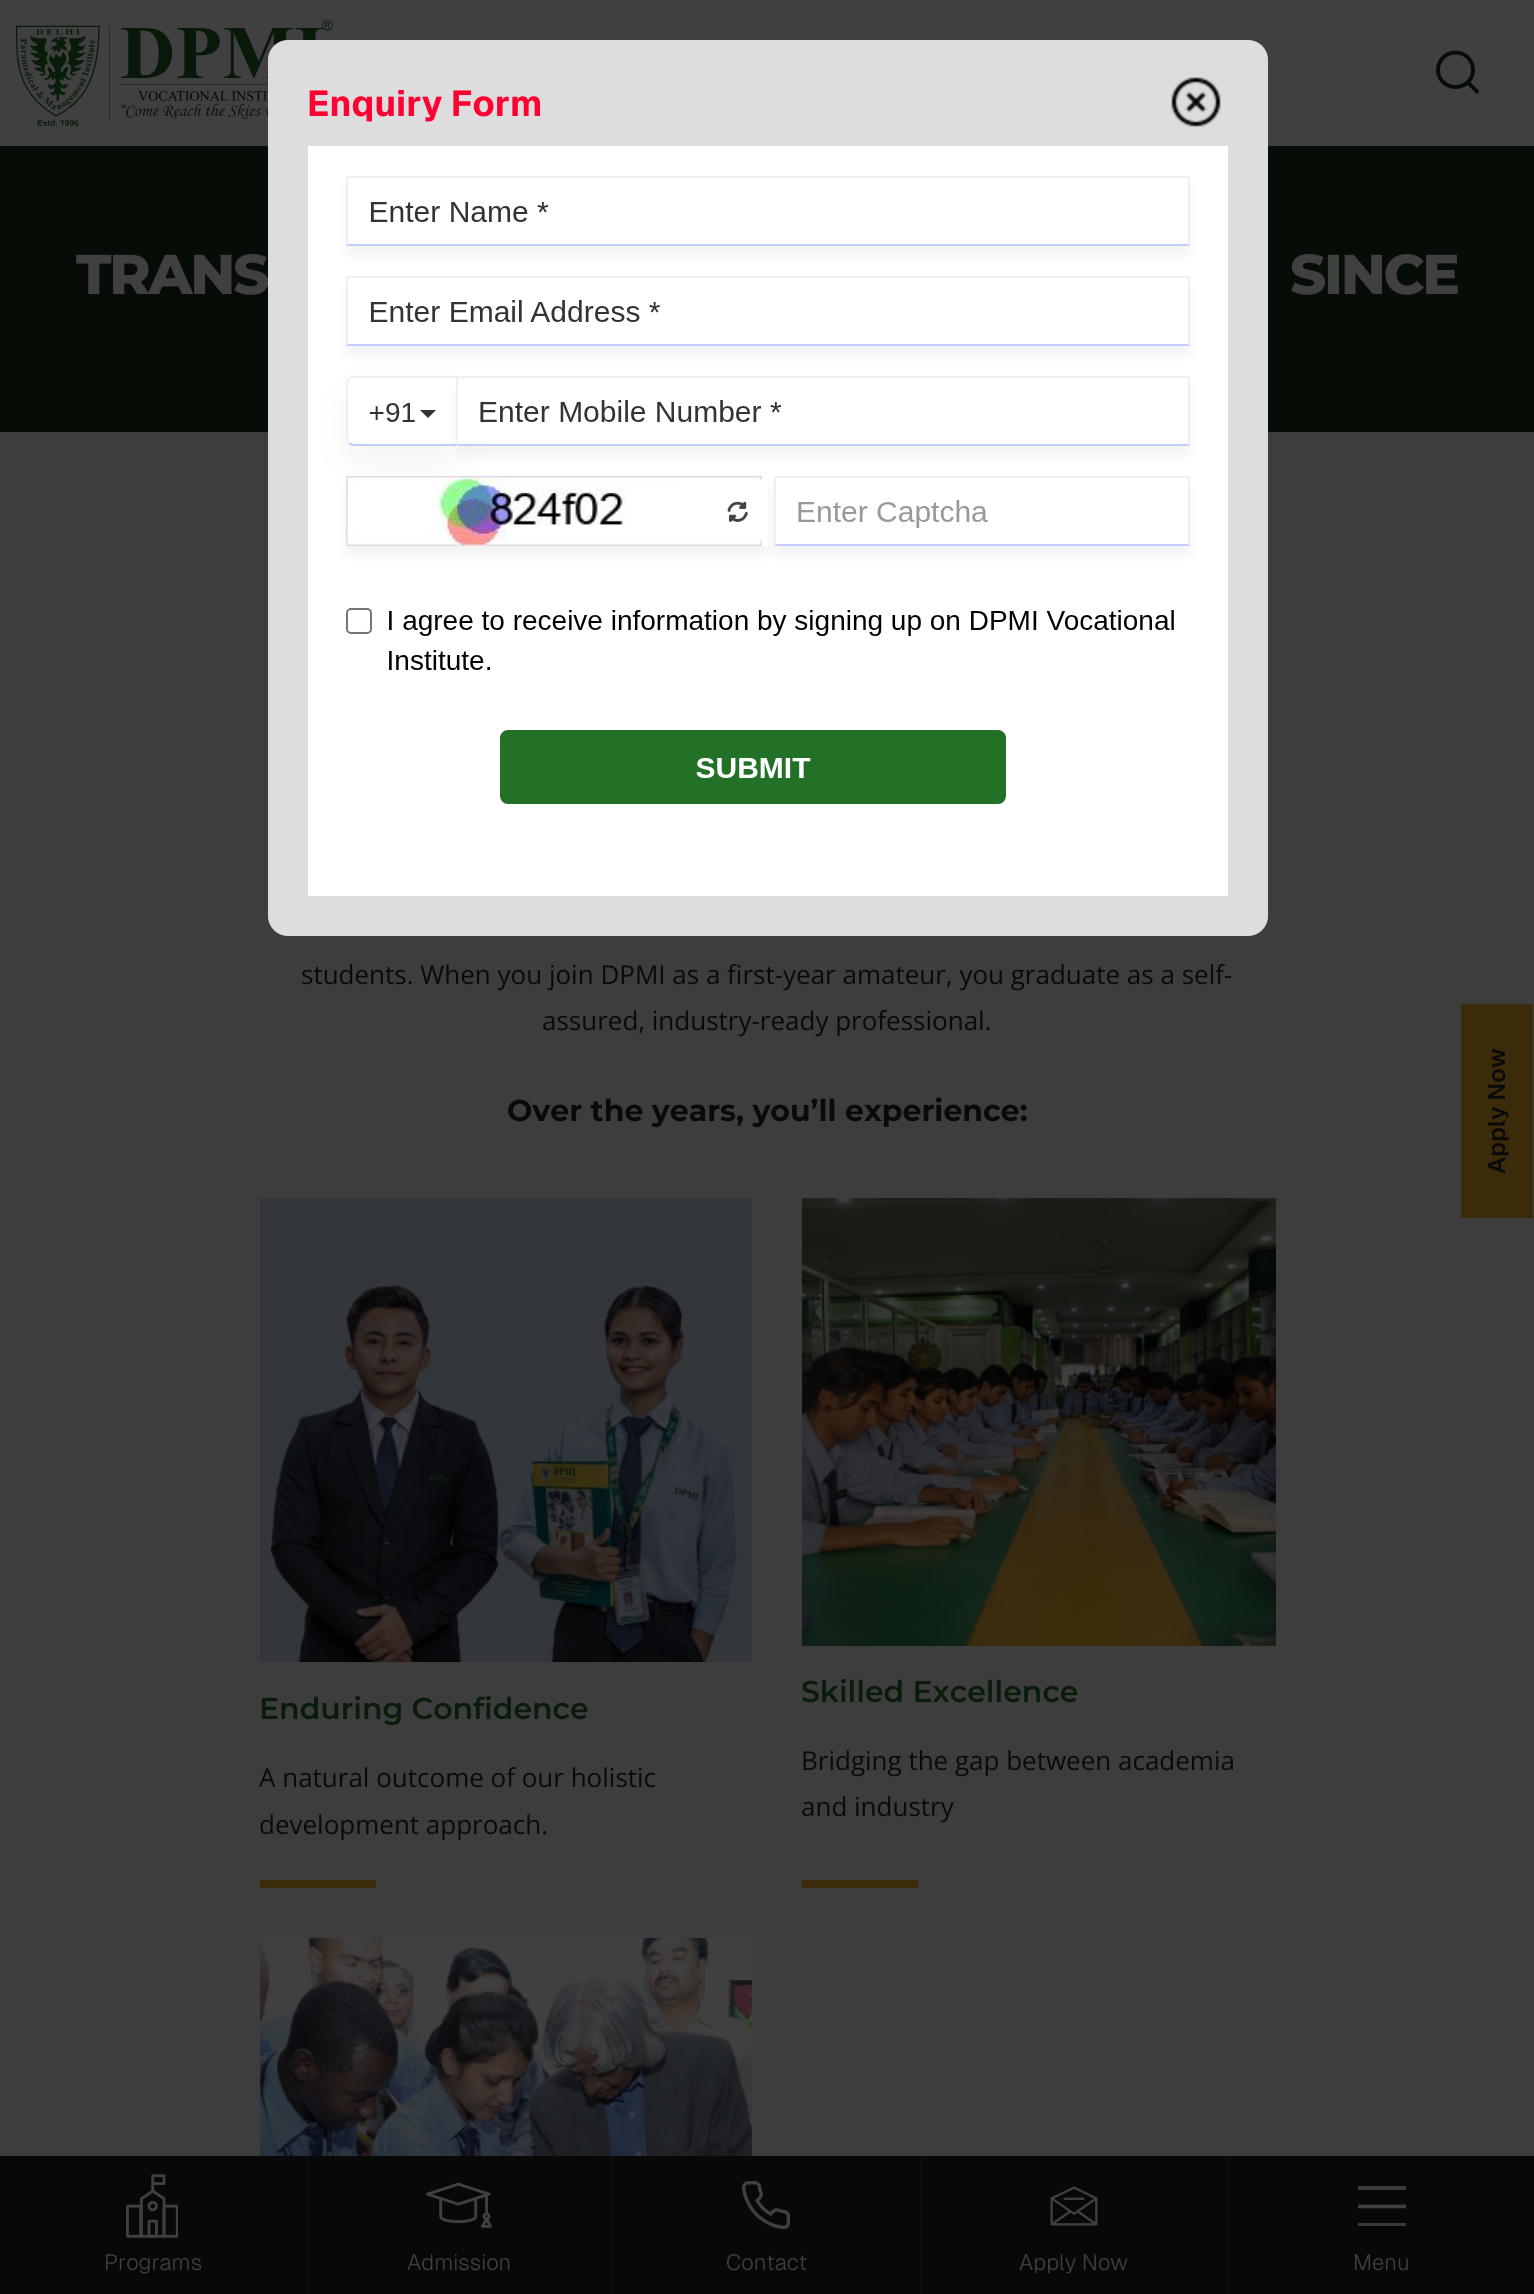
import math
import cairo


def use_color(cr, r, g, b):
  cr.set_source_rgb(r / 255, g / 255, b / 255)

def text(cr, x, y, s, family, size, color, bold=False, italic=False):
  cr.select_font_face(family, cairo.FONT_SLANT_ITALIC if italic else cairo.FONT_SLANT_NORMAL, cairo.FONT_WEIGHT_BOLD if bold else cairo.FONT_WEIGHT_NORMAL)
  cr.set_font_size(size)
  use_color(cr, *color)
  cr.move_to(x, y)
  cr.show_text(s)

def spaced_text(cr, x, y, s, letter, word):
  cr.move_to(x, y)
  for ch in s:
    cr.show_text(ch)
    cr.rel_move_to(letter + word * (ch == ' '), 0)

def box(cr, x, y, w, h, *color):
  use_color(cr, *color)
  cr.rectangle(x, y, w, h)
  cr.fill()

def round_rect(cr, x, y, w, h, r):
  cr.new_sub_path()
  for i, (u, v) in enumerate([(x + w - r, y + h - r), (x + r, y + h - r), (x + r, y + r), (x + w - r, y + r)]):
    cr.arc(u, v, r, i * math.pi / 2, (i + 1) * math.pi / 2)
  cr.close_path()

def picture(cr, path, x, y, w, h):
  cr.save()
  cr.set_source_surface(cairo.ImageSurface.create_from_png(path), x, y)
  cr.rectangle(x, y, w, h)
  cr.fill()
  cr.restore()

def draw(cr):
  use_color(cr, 61, 61, 61)
  cr.paint()
  box(cr, 0, 0, 1534, 146, 64, 64, 64)
  picture(cr, "img_01.png", 16, 20, 317, 106)
  cr.new_path()
  cr.move_to(1473, 70)
  cr.curve_to(1473, 79.5, 1465, 87, 1455.5, 87)
  cr.curve_to(1446, 87, 1438, 79.5, 1438, 70)
  cr.curve_to(1438, 60, 1446, 52.5, 1455.5, 52.5)
  cr.curve_to(1465, 52.5, 1473, 60, 1473, 70)
  cr.close_path()
  cr.move_to(1477, 91.5)
  cr.line_to(1467.5, 82)
  use_color(cr, 6, 13, 7)
  cr.set_line_width(3.9)
  cr.set_line_cap(cairo.LINE_CAP_ROUND)
  cr.stroke()
  box(cr, 0, 146, 1534, 286, 6, 13, 7)
  picture(cr, "img_04.png", 260, 1198, 492, 464)
  box(cr, 260, 1880, 116, 8, 60, 43, 11)
  picture(cr, "img_05.png", 802, 1198, 474, 448)
  box(cr, 802, 1880, 116, 8, 60, 43, 11)
  picture(cr, "img_06.png", 260, 1938, 492, 218)
  box(cr, 1461, 1004, 72, 214, 60, 43, 11)
  box(cr, 0, 2156, 306, 138, 8, 8, 8)
  box(cr, 306, 2156, 2, 138, 7, 13, 16)
  picture(cr, "img_07.png", 126, 2174, 52, 64)
  box(cr, 308, 2156, 304, 138, 8, 8, 8)
  box(cr, 612, 2156, 2, 138, 7, 13, 16)
  picture(cr, "img_08.png", 426, 2182, 66, 46)
  box(cr, 614, 2156, 306, 138, 8, 8, 8)
  box(cr, 920, 2156, 2, 138, 7, 13, 16)
  picture(cr, "img_09.png", 742, 2181, 48, 49)
  box(cr, 922, 2156, 304, 138, 8, 8, 8)
  box(cr, 1226, 2156, 2, 138, 7, 13, 16)
  picture(cr, "img_10.png", 1050, 2186, 48, 40)
  box(cr, 1228, 2156, 306, 138, 8, 8, 8)
  box(cr, 1358, 2186, 48, 4, 58, 58, 58)
  cr.new_path()
  cr.move_to(1358, 2206.5)
  cr.line_to(1406, 2206.5)
  use_color(cr, 64, 64, 64)
  cr.set_line_width(3.6)
  cr.set_line_cap(cairo.LINE_CAP_BUTT)
  cr.stroke()
  box(cr, 1358, 2223, 48, 3, 58, 58, 58)
  cr.select_font_face("Montserrat ExtraBold")
  cr.set_font_size(56)
  use_color(cr, 64, 64, 64)
  spaced_text(cr, 76, 294, "TRANS", -2.25, 0)
  use_color(cr, 221, 221, 221)
  round_rect(cr, 268, 40, 1000, 896, 20)
  cr.fill()
  picture(cr, "img_02.png", 1171, 77, 50, 50)
  picture(cr, "img_03.png", 308, 146, 920, 750)
  text(cr, 307, 116, "Enquiry Form", "Geist", 36, (255, 0, 51), bold=True)
  cr.select_font_face("Montserrat ExtraBold")
  cr.set_font_size(56)
  use_color(cr, 64, 64, 64)
  spaced_text(cr, 1290, 294, "SINCE", -2.25, 0)
  text(cr, 301, 984, "students. When you join DPMI as a first-year amateur, you graduate as a self-", "Open Sans", 26, (10, 10, 10))
  text(cr, 542, 1030, "assured, industry-ready professional.", "Open Sans", 26, (10, 10, 10))
  text(cr, 507, 1121, "Over the years, you’ll experience:", "Montserrat", 30, (10, 10, 10), bold=True)
  text(cr, 259, 1719, "Enduring Confidence", "Montserrat SemiBold", 30, (9, 28, 10))
  text(cr, 259, 1787, "A natural outcome of our holistic", "Open Sans", 26, (10, 10, 10))
  text(cr, 259, 1834, "development approach.", "Open Sans", 26, (10, 10, 10))
  text(cr, 801, 1702, "Skilled Excellence", "Montserrat SemiBold", 30, (9, 28, 10))
  text(cr, 801, 1770, "Bridging the gap between academia", "Open Sans", 26, (10, 10, 10))
  text(cr, 801, 1816, "and industry", "Open Sans", 26, (10, 10, 10))
  cr.save()
  cr.translate(1505, 1174)
  cr.rotate(-90 * math.pi / 180)
  text(cr, 0, 0, "Apply Now", "Geist SemiBold", 24, (10, 10, 10))
  cr.restore()
  text(cr, 104, 2270, "Programs", "Geist Light", 22, (64, 64, 64))
  text(cr, 407, 2270, "Admission", "Geist Light", 22, (64, 64, 64))
  text(cr, 726, 2270, "Contact", "Geist Light", 22, (64, 64, 64))
  text(cr, 1019, 2270, "Apply Now", "Geist Light", 22, (64, 64, 64))
  text(cr, 1353, 2270, "Menu", "Geist Light", 22, (64, 64, 64))


surface = cairo.ImageSurface(cairo.FORMAT_RGB24, 1534, 2294)
cr = cairo.Context(surface)
options = cairo.FontOptions()
options.set_hint_metrics(cairo.HINT_METRICS_OFF)
options.set_hint_style(cairo.HINT_STYLE_NONE)
cr.set_font_options(options)
cr.set_miter_limit(4)
draw(cr)
surface.write_to_png("out.png")
